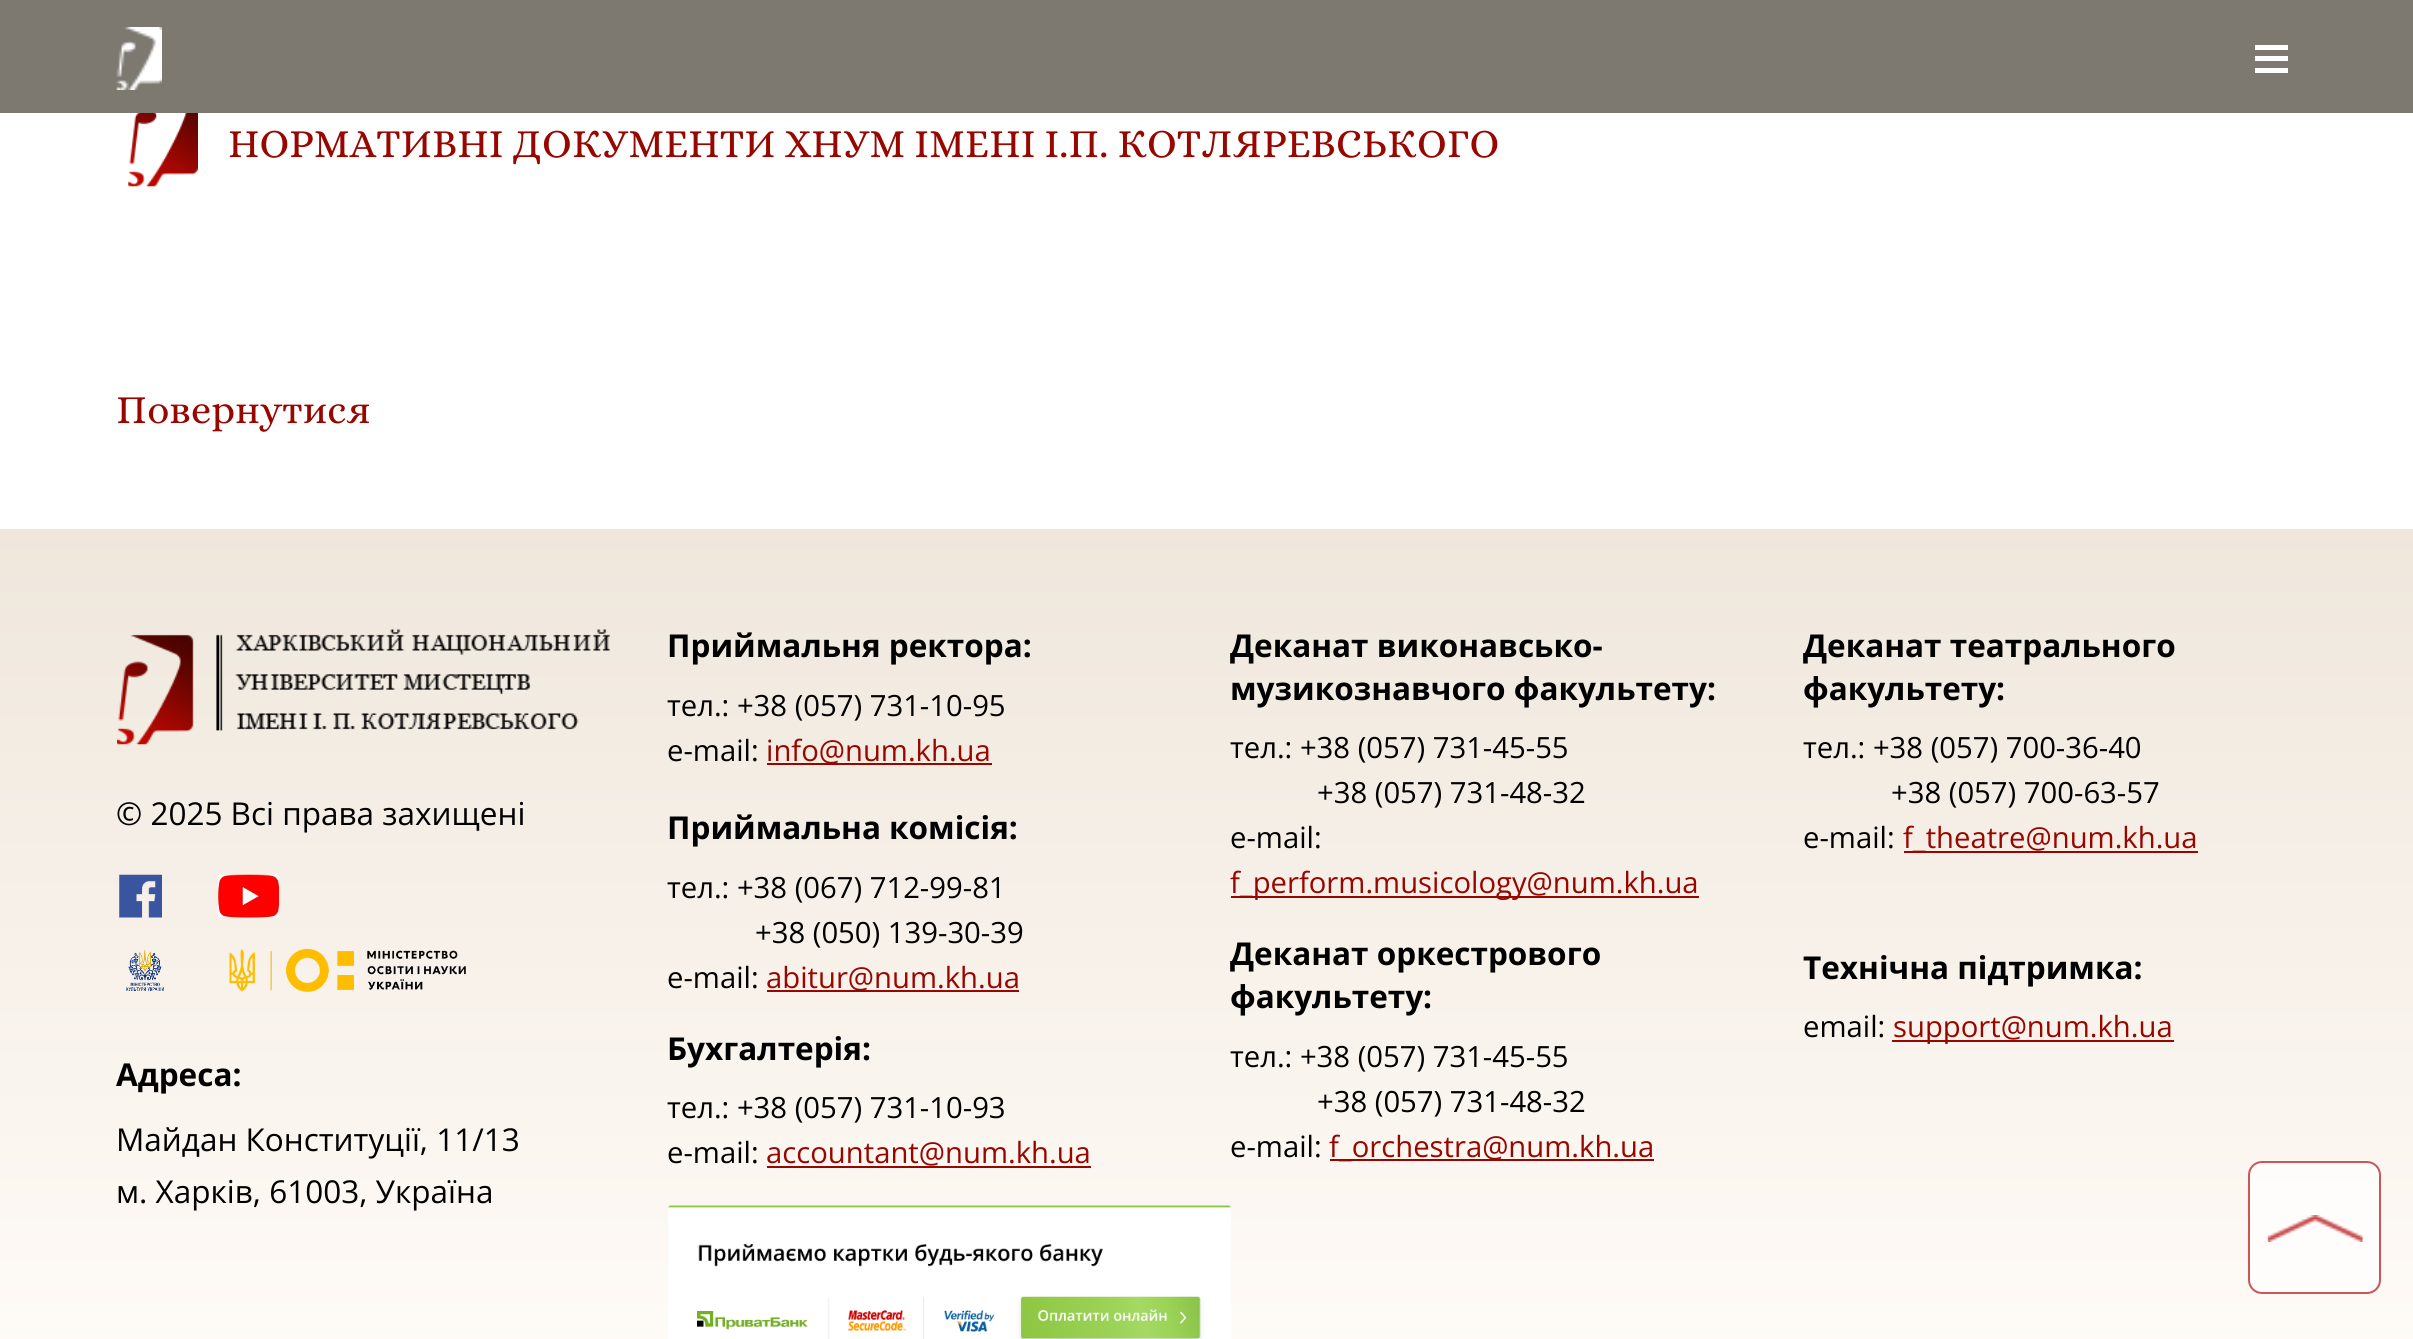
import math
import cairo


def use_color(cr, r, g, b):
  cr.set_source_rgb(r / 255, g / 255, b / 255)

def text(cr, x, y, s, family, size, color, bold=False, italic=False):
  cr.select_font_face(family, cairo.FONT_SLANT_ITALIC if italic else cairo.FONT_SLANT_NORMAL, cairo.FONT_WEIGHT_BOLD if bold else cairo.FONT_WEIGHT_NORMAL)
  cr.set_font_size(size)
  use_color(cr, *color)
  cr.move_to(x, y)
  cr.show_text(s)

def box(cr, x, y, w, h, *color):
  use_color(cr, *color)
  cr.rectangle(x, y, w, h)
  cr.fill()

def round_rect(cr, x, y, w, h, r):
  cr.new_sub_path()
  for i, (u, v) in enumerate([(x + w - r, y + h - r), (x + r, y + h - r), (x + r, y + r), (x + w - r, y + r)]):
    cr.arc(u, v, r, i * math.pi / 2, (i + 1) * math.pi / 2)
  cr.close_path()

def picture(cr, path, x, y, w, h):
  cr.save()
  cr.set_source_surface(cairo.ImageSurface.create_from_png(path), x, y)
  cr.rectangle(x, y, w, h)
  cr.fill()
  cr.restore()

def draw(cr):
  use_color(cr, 255, 255, 255)
  cr.paint()
  box(cr, 0, 0, 2413, 113, 125, 120, 112)
  picture(cr, "img_01.png", 116, 27, 46, 63)
  box(cr, 2255, 45, 33, 5, 255, 255, 255)
  box(cr, 2255, 56, 33, 5, 255, 255, 255)
  box(cr, 2255, 68, 33, 5, 255, 255, 255)
  gradient = cairo.LinearGradient(1207, 529, 1207, 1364)
  gradient.add_color_stop_rgba(0, 0.937, 0.906, 0.863, 1)
  gradient.add_color_stop_rgba(1, 1, 0.984, 0.969, 1)
  cr.set_source(gradient)
  cr.rectangle(0, 529, 2413, 810)
  cr.fill()
  cr.set_source_rgba(1, 1, 1, 0.7)
  round_rect(cr, 2248, 1161, 133, 133, 14)
  cr.fill()
  picture(cr, "img_02.png", 2267, 1215, 96, 27)
  round_rect(cr, 2249, 1162, 131, 131, 13)
  cr.set_source_rgba(0.698, 0.071, 0.071, 0.7)
  cr.stroke()
  picture(cr, "img_03.png", 128, 113, 70, 74)
  picture(cr, "img_04.png", 117, 629, 493, 116)
  picture(cr, "img_05.png", 119, 874, 43, 44)
  picture(cr, "img_06.png", 218, 874, 61, 44)
  picture(cr, "img_07.png", 126, 950, 38, 41)
  picture(cr, "img_08.png", 229, 949, 237, 43)
  box(cr, 767, 763, 225, 2, 152, 6, 0)
  box(cr, 767, 990, 252, 2, 152, 6, 0)
  box(cr, 767, 1166, 324, 2, 152, 6, 0)
  picture(cr, "img_09.png", 668, 1205, 563, 134)
  box(cr, 1231, 896, 468, 2, 152, 6, 0)
  box(cr, 1330, 1159, 324, 2, 152, 6, 0)
  box(cr, 1904, 851, 294, 2, 152, 6, 0)
  box(cr, 1892, 1040, 282, 2, 152, 6, 0)
  text(cr, 228, 157, "НОРМАТИВНІ ДОКУМЕНТИ ХНУМ ІМЕНІ І.П. КОТЛЯРЕВСЬКОГО", "Alice", 40.5, (152, 6, 0))
  text(cr, 116, 423, "Повернутися", "Alice", 40.5, (152, 6, 0))
  text(cr, 116, 825, "© 2025 Всі права захищені", "Open Sans", 31.5, (0, 0, 0))
  text(cr, 116, 1086, "Адреса:", "Open Sans", 31.5, (0, 0, 0), bold=True)
  text(cr, 116, 1151, "Майдан Конституцiї, 11/13", "Open Sans", 31.5, (0, 0, 0))
  text(cr, 116, 1203, "м. Харкiв, 61003, Україна", "Open Sans", 31.5, (0, 0, 0))
  text(cr, 667, 657, "Приймальня ректора:", "Open Sans", 31.5, (0, 0, 0), bold=True)
  text(cr, 667, 716, "тел.: +38 (057) 731-10-95", "Open Sans", 29.25, (0, 0, 0))
  text(cr, 667, 761, "e-mail:", "Open Sans", 29.25, (0, 0, 0))
  text(cr, 766, 761, "info@num.kh.ua", "Open Sans", 29.25, (152, 6, 0))
  text(cr, 667, 839, "Приймальна комісія:", "Open Sans", 31.5, (0, 0, 0), bold=True)
  text(cr, 667, 898, "тел.: +38 (067) 712-99-81", "Open Sans", 29.25, (0, 0, 0))
  text(cr, 755, 943, "+38 (050) 139-30-39", "Open Sans", 29.25, (0, 0, 0))
  text(cr, 667, 988, "e-mail:", "Open Sans", 29.25, (0, 0, 0))
  text(cr, 766, 988, "abitur@num.kh.ua", "Open Sans", 29.25, (152, 6, 0))
  text(cr, 667, 1060, "Бухгалтерія:", "Open Sans", 31.5, (0, 0, 0), bold=True)
  text(cr, 667, 1118, "тел.: +38 (057) 731-10-93", "Open Sans", 29.25, (0, 0, 0))
  text(cr, 667, 1163, "e-mail:", "Open Sans", 29.25, (0, 0, 0))
  text(cr, 766, 1163, "accountant@num.kh.ua", "Open Sans", 29.25, (152, 6, 0))
  text(cr, 1230, 657, "Деканат виконавсько-", "Open Sans", 31.5, (0, 0, 0), bold=True)
  text(cr, 1230, 700, "музикознавчого факультету:", "Open Sans", 31.5, (0, 0, 0), bold=True)
  text(cr, 1230, 758, "тел.: +38 (057) 731-45-55", "Open Sans", 29.25, (0, 0, 0))
  text(cr, 1317, 803, "+38 (057) 731-48-32", "Open Sans", 29.25, (0, 0, 0))
  text(cr, 1230, 848, "e-mail:", "Open Sans", 29.25, (0, 0, 0))
  text(cr, 1230, 893, "f_perform.musicology@num.kh.ua", "Open Sans", 29.25, (152, 6, 0))
  text(cr, 1230, 965, "Деканат оркестрового", "Open Sans", 31.5, (0, 0, 0), bold=True)
  text(cr, 1230, 1008, "факультету:", "Open Sans", 31.5, (0, 0, 0), bold=True)
  text(cr, 1230, 1067, "тел.: +38 (057) 731-45-55", "Open Sans", 29.25, (0, 0, 0))
  text(cr, 1317, 1112, "+38 (057) 731-48-32", "Open Sans", 29.25, (0, 0, 0))
  text(cr, 1230, 1157, "e-mail:", "Open Sans", 29.25, (0, 0, 0))
  text(cr, 1329, 1157, "f_orchestra@num.kh.ua", "Open Sans", 29.25, (152, 6, 0))
  text(cr, 1803, 657, "Деканат театрального", "Open Sans", 31.5, (0, 0, 0), bold=True)
  text(cr, 1803, 700, "факультету:", "Open Sans", 31.5, (0, 0, 0), bold=True)
  text(cr, 1803, 758, "тел.: +38 (057) 700-36-40", "Open Sans", 29.25, (0, 0, 0))
  text(cr, 1891, 803, "+38 (057) 700-63-57", "Open Sans", 29.25, (0, 0, 0))
  text(cr, 1803, 848, "e-mail:", "Open Sans", 29.25, (0, 0, 0))
  text(cr, 1903, 848, "f_theatre@num.kh.ua", "Open Sans", 29.25, (152, 6, 0))
  text(cr, 1803, 979, "Технічна підтримка:", "Open Sans", 31.5, (0, 0, 0), bold=True)
  text(cr, 1803, 1037, "email:", "Open Sans", 29.25, (0, 0, 0))
  text(cr, 1893, 1037, "support@num.kh.ua", "Open Sans", 29.25, (152, 6, 0))


surface = cairo.ImageSurface(cairo.FORMAT_RGB24, 2413, 1339)
cr = cairo.Context(surface)
options = cairo.FontOptions()
options.set_hint_metrics(cairo.HINT_METRICS_OFF)
options.set_hint_style(cairo.HINT_STYLE_NONE)
cr.set_font_options(options)
cr.set_miter_limit(4)
draw(cr)
surface.write_to_png("out.png")
